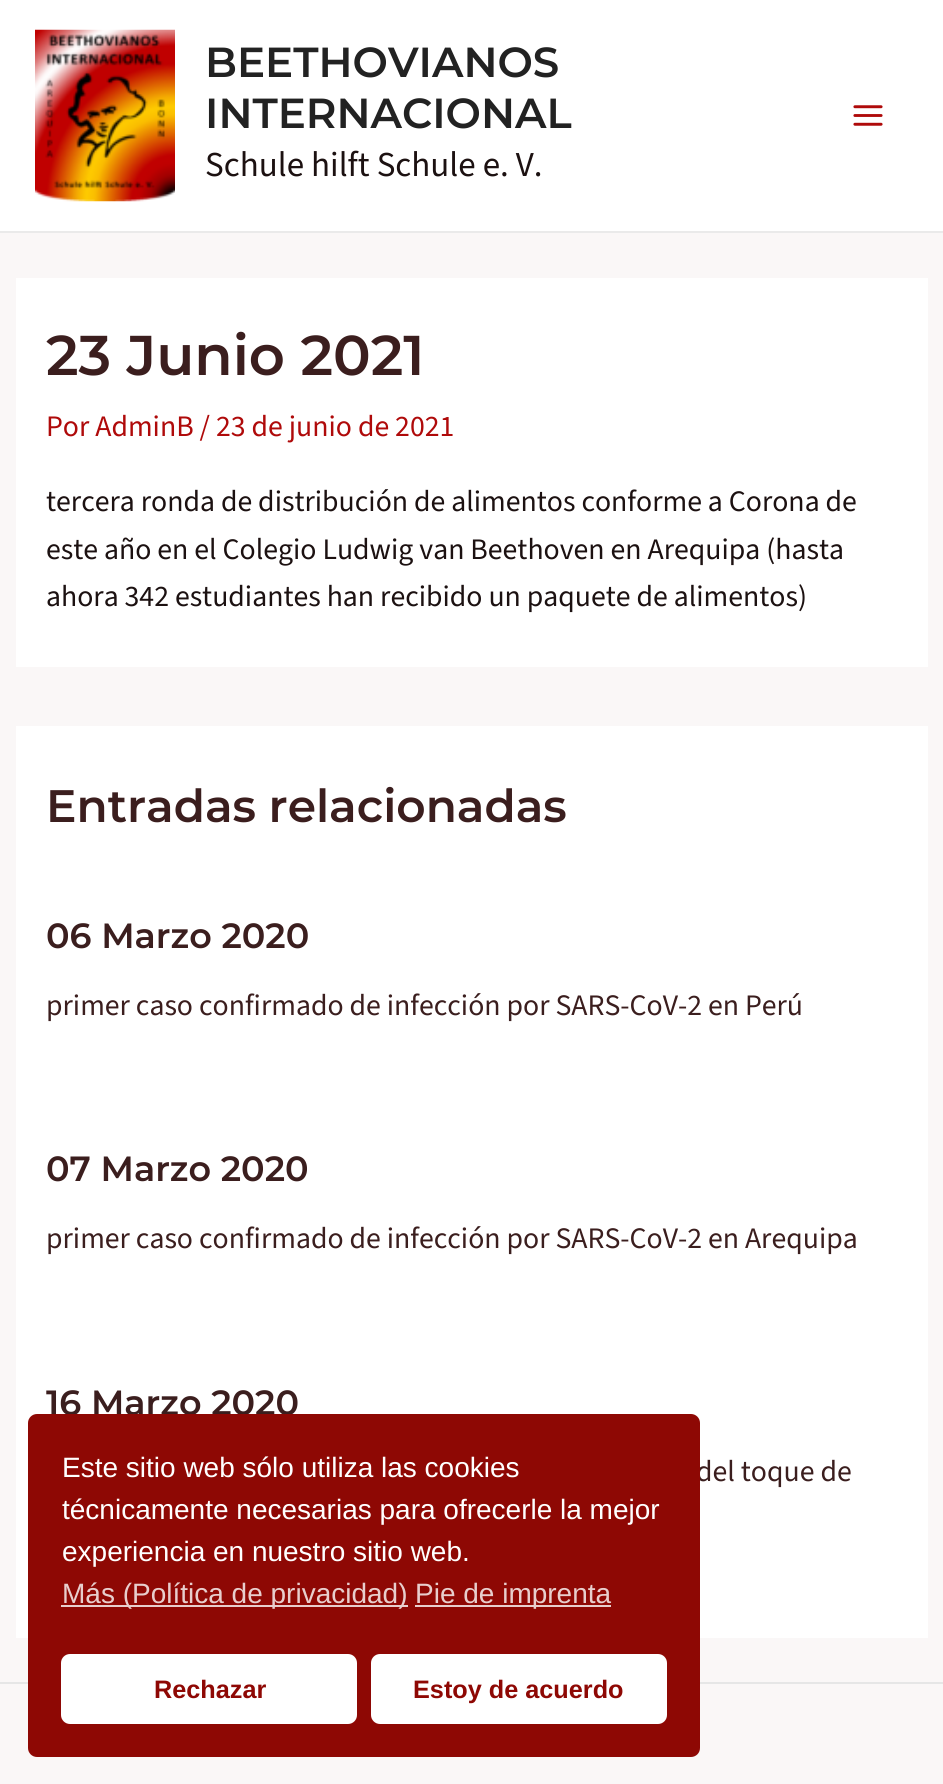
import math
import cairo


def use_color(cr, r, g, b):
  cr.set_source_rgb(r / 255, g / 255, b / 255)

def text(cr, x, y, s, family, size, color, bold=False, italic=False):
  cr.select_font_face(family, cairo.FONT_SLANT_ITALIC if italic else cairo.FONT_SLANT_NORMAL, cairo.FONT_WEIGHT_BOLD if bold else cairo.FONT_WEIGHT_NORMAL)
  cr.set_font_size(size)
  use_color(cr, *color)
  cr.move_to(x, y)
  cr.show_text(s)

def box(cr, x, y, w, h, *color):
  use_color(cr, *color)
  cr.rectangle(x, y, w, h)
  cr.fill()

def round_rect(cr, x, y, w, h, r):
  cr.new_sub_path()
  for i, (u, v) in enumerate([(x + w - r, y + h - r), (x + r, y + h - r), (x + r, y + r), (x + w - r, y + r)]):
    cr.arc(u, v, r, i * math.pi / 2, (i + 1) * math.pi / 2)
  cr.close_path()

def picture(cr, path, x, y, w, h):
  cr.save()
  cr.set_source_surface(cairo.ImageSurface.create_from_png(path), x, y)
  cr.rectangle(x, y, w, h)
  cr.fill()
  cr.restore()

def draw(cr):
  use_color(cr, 250, 247, 247)
  cr.paint()
  box(cr, 0, 0, 943, 231, 255, 255, 255)
  box(cr, 0, 231, 943, 2, 234, 234, 234)
  picture(cr, "img_01.png", 35, 29, 140, 173)
  picture(cr, "img_02.png", 853, 105, 30, 21)
  box(cr, 16, 278, 912, 389, 255, 255, 255)
  box(cr, 16, 726, 912, 912, 255, 255, 255)
  box(cr, 0, 1682, 943, 2, 230, 230, 230)
  text(cr, 205, 77, "BEETHOVIANOS", "Montserrat SemiBold", 42, (34, 34, 34))
  text(cr, 205, 128, "INTERNACIONAL", "Montserrat SemiBold", 42, (34, 34, 34))
  text(cr, 205, 176, "Schule hilft Schule e. V.", "Source Sans 3 ExtraLight", 35, (28, 17, 17))
  text(cr, 46, 375, "23 Junio 2021", "Montserrat SemiBold", 56, (59, 30, 30))
  text(cr, 46, 436, "Por AdminB / 23 de junio de 2021", "Source Sans 3 ExtraLight", 29.75, (175, 10, 10))
  text(cr, 46, 511, "tercera ronda de distribución de alimentos conforme a Corona de", "Source Sans 3 ExtraLight", 29.75, (28, 17, 17))
  text(cr, 46, 559, "este año en el Colegio Ludwig van Beethoven en Arequipa (hasta", "Source Sans 3 ExtraLight", 29.75, (28, 17, 17))
  text(cr, 46, 606, "ahora 342 estudiantes han recibido un paquete de alimentos)", "Source Sans 3 ExtraLight", 29.75, (28, 17, 17))
  text(cr, 46, 822, "Entradas relacionadas", "Montserrat SemiBold", 45.5, (59, 30, 30))
  text(cr, 46, 948, "06 Marzo 2020", "Montserrat SemiBold", 35, (59, 30, 30))
  text(cr, 46, 1015, "primer caso confirmado de infección por SARS-CoV-2 en Perú", "Source Sans 3 ExtraLight", 29.75, (59, 30, 30))
  text(cr, 46, 1181, "07 Marzo 2020", "Montserrat SemiBold", 35, (59, 30, 30))
  text(cr, 46, 1248, "primer caso confirmado de infección por SARS-CoV-2 en Arequipa", "Source Sans 3 ExtraLight", 29.75, (59, 30, 30))
  text(cr, 46, 1415, "16 Marzo 2020", "Montserrat SemiBold", 35, (59, 30, 30))
  text(cr, 696, 1481, "del toque de", "Source Sans 3 ExtraLight", 29.75, (59, 30, 30))
  use_color(cr, 142, 8, 4)
  round_rect(cr, 28, 1414, 672, 343, 9)
  cr.fill()
  text(cr, 62, 1477, "Este sitio web sólo utiliza las cookies", "Liberation Sans", 28, (255, 255, 255))
  text(cr, 62, 1519, "técnicamente necesarias para ofrecerle la mejor", "Liberation Sans", 28, (255, 255, 255))
  text(cr, 62, 1561, "experiencia en nuestro sitio web.", "Liberation Sans", 28, (255, 255, 255))
  box(cr, 61, 1605, 347, 2, 232, 206, 205)
  text(cr, 62, 1603, "Más (Política de privacidad)", "Liberation Sans", 28, (232, 206, 205))
  box(cr, 415, 1605, 196, 2, 232, 206, 205)
  text(cr, 415, 1603, "Pie de imprenta", "Liberation Sans", 28, (232, 206, 205))
  use_color(cr, 255, 255, 255)
  round_rect(cr, 61, 1654, 296, 70, 9)
  cr.fill()
  text(cr, 154, 1698, "Rechazar", "Liberation Sans", 25.25, (142, 8, 4), bold=True)
  use_color(cr, 255, 255, 255)
  round_rect(cr, 371, 1654, 296, 70, 9)
  cr.fill()
  text(cr, 413, 1698, "Estoy de acuerdo", "Liberation Sans", 25.25, (142, 8, 4), bold=True)


surface = cairo.ImageSurface(cairo.FORMAT_RGB24, 943, 1784)
cr = cairo.Context(surface)
options = cairo.FontOptions()
options.set_hint_metrics(cairo.HINT_METRICS_OFF)
options.set_hint_style(cairo.HINT_STYLE_NONE)
cr.set_font_options(options)
cr.set_miter_limit(4)
draw(cr)
surface.write_to_png("out.png")
